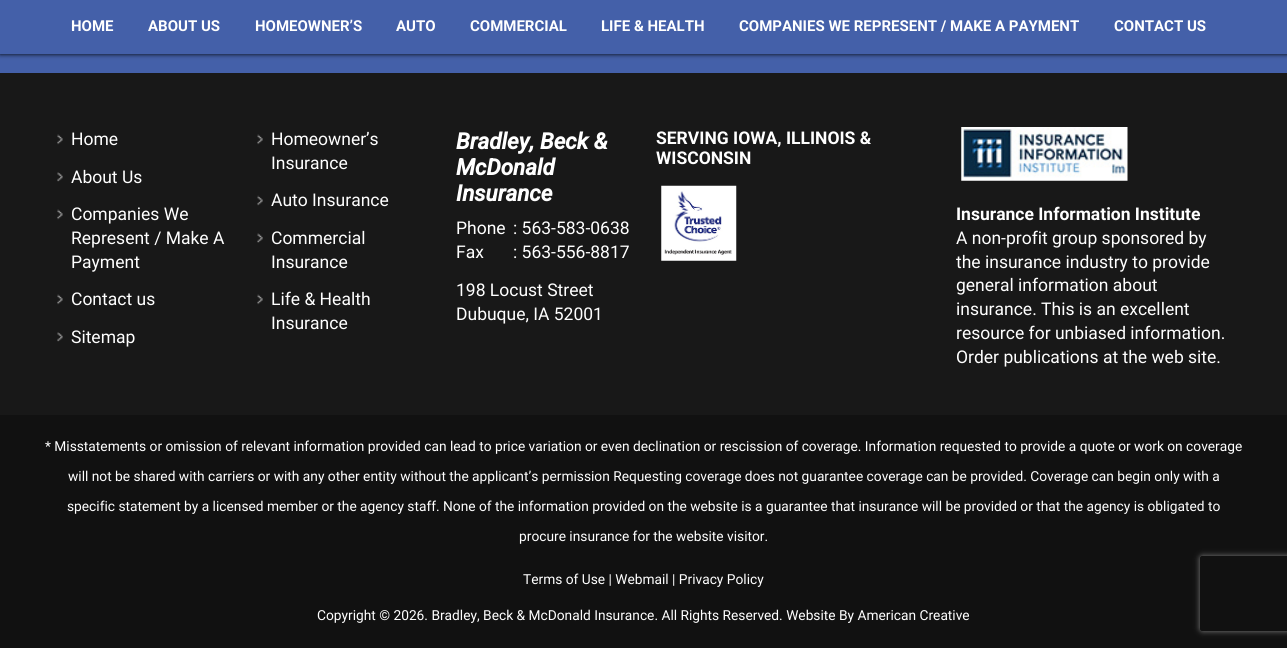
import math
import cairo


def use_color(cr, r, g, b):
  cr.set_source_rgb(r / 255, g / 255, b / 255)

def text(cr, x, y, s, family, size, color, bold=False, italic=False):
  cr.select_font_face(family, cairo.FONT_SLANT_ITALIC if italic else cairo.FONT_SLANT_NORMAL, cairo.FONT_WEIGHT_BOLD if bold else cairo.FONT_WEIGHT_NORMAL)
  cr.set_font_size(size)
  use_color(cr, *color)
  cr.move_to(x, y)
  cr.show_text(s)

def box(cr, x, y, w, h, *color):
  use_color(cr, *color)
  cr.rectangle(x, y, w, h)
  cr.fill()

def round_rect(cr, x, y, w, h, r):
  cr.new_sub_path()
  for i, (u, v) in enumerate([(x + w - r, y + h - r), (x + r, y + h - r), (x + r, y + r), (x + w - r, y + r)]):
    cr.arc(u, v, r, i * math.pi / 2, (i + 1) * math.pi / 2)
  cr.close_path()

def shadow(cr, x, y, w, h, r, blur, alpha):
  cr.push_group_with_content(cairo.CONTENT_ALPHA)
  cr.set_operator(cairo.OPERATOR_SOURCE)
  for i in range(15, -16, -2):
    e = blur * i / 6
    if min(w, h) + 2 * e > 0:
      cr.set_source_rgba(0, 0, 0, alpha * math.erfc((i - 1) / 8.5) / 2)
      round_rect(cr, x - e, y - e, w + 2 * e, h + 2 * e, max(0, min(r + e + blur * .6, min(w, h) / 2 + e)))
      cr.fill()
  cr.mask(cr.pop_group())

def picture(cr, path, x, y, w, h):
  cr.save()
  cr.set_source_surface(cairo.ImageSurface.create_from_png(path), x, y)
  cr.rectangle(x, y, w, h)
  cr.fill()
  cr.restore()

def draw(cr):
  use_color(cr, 68, 96, 169)
  cr.paint()
  use_color(cr, 0, 0, 0)
  shadow(cr, 0, 0, 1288, 54, 0, 2.5, 1)
  box(cr, 0, 0, 1287, 54, 68, 96, 169)
  box(cr, 0, 73, 1287, 342, 24, 24, 24)
  picture(cr, "img_01.png", 57, 134, 6, 11)
  picture(cr, "img_02.png", 57, 172, 6, 10)
  picture(cr, "img_01.png", 57, 209, 6, 11)
  picture(cr, "img_03.png", 57, 294, 6, 11)
  picture(cr, "img_02.png", 57, 332, 6, 10)
  picture(cr, "img_04.png", 257, 134, 6, 11)
  picture(cr, "img_05.png", 257, 195, 6, 11)
  picture(cr, "img_06.png", 257, 233, 6, 10)
  picture(cr, "img_07.png", 257, 294, 6, 11)
  picture(cr, "img_08.png", 661, 185, 76, 76)
  picture(cr, "img_09.png", 961, 127, 167, 54)
  box(cr, 0, 415, 1287, 233, 17, 17, 17)
  cr.save()
  cr.set_fill_rule(cairo.FILL_RULE_EVEN_ODD)
  cr.new_path()
  cr.move_to(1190, 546)
  cr.line_to(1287, 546)
  cr.line_to(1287, 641)
  cr.line_to(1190, 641)
  cr.close_path()
  cr.move_to(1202.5, 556)
  cr.line_to(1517.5, 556)
  cr.curve_to(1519, 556, 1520, 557, 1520, 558.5)
  cr.line_to(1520, 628.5)
  cr.curve_to(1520, 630, 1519, 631, 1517.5, 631)
  cr.line_to(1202.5, 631)
  cr.curve_to(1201, 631, 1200, 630, 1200, 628.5)
  cr.line_to(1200, 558.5)
  cr.curve_to(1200, 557, 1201, 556, 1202.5, 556)
  cr.close_path()
  cr.clip()
  use_color(cr, 128, 128, 128)
  shadow(cr, 1200, 556, 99, 75, 2.5, 3, 1)
  cr.restore()
  text(cr, 71, 31, "HOME", "Roboto", 15, (255, 255, 255), bold=True)
  text(cr, 148, 31, "ABOUT US", "Roboto", 15, (255, 255, 255), bold=True)
  text(cr, 255, 31, "HOMEOWNER’S", "Roboto", 15, (255, 255, 255), bold=True)
  text(cr, 396, 31, "AUTO", "Roboto", 15, (255, 255, 255), bold=True)
  text(cr, 470, 31, "COMMERCIAL", "Roboto", 15, (255, 255, 255), bold=True)
  text(cr, 601, 31, "LIFE & HEALTH", "Roboto", 15, (255, 255, 255), bold=True)
  text(cr, 739, 31, "COMPANIES WE REPRESENT / MAKE A PAYMENT", "Roboto", 15, (255, 255, 255), bold=True)
  text(cr, 1114, 31, "CONTACT US", "Roboto", 15, (255, 255, 255), bold=True)
  text(cr, 71, 145, "Home", "Roboto", 17.5, (255, 255, 255))
  text(cr, 71, 183, "About Us", "Roboto", 17.5, (255, 255, 255))
  text(cr, 71, 220, "Companies We", "Roboto", 17.5, (255, 255, 255))
  text(cr, 71, 244, "Represent / Make A", "Roboto", 17.5, (255, 255, 255))
  text(cr, 71, 268, "Payment", "Roboto", 17.5, (255, 255, 255))
  text(cr, 71, 305, "Contact us", "Roboto", 17.5, (255, 255, 255))
  text(cr, 71, 343, "Sitemap", "Roboto", 17.5, (255, 255, 255))
  text(cr, 271, 145, "Homeowner’s", "Roboto", 17.5, (255, 255, 255))
  text(cr, 271, 169, "Insurance", "Roboto", 17.5, (255, 255, 255))
  text(cr, 271, 206, "Auto Insurance", "Roboto", 17.5, (255, 255, 255))
  text(cr, 271, 244, "Commercial", "Roboto", 17.5, (255, 255, 255))
  text(cr, 271, 268, "Insurance", "Roboto", 17.5, (255, 255, 255))
  text(cr, 271, 305, "Life & Health", "Roboto", 17.5, (255, 255, 255))
  text(cr, 271, 329, "Insurance", "Roboto", 17.5, (255, 255, 255))
  text(cr, 456, 149, "Bradley, Beck &", "Roboto", 22.5, (255, 255, 255), bold=True, italic=True)
  text(cr, 456, 175, "McDonald", "Roboto", 22.5, (255, 255, 255), bold=True, italic=True)
  text(cr, 456, 201, "Insurance", "Roboto", 22.5, (255, 255, 255), bold=True, italic=True)
  text(cr, 456, 234, "Phone", "Roboto", 17.5, (255, 255, 255))
  text(cr, 513, 234, ": 563-583-0638", "Roboto", 17.5, (255, 255, 255))
  text(cr, 456, 258, "Fax", "Roboto", 17.5, (255, 255, 255))
  text(cr, 513, 258, ": 563-556-8817", "Roboto", 17.5, (255, 255, 255))
  text(cr, 456, 296, "198 Locust Street", "Roboto", 17.5, (255, 255, 255))
  text(cr, 456, 320, "Dubuque, IA 52001", "Roboto", 17.5, (255, 255, 255))
  text(cr, 656, 144, "SERVING IOWA, ILLINOIS &", "Roboto", 17.5, (255, 255, 255), bold=True)
  text(cr, 656, 164, "WISCONSIN", "Roboto", 17.5, (255, 255, 255), bold=True)
  text(cr, 956, 220, "Insurance Information Institute", "Roboto", 17.5, (255, 255, 255), bold=True)
  text(cr, 956, 244, "A non-profit group sponsored by", "Roboto", 17.5, (255, 255, 255))
  text(cr, 956, 268, "the insurance industry to provide", "Roboto", 17.5, (255, 255, 255))
  text(cr, 956, 291, "general information about", "Roboto", 17.5, (255, 255, 255))
  text(cr, 956, 315, "insurance. This is an excellent", "Roboto", 17.5, (255, 255, 255))
  text(cr, 956, 339, "resource for unbiased information.", "Roboto", 17.5, (255, 255, 255))
  text(cr, 956, 363, "Order publications at the web site.", "Roboto", 17.5, (255, 255, 255))
  text(cr, 45, 451, "* Misstatements or omission of relevant information provided can lead to price variation or even declination or rescission of coverage. Information requested to provide a quote or work on coverage", "Roboto", 13.75, (255, 255, 255))
  text(cr, 68, 481, "will not be shared with carriers or with any other entity without the applicant’s permission Requesting coverage does not guarantee coverage can be provided. Coverage can begin only with a", "Roboto", 13.75, (255, 255, 255))
  text(cr, 67, 511, "specific statement by a licensed member or the agency staff. None of the information provided on the website is a guarantee that insurance will be provided or that the agency is obligated to", "Roboto", 13.75, (255, 255, 255))
  text(cr, 519, 541, "procure insurance for the website visitor.", "Roboto", 13.75, (255, 255, 255))
  text(cr, 523, 584, "Terms of Use | Webmail | Privacy Policy", "Roboto", 13.75, (255, 255, 255))
  text(cr, 317, 620, "Copyright © 2026. Bradley, Beck & McDonald Insurance. All Rights Reserved. Website By American Creative", "Roboto", 13.75, (255, 255, 255))


surface = cairo.ImageSurface(cairo.FORMAT_RGB24, 1287, 648)
cr = cairo.Context(surface)
options = cairo.FontOptions()
options.set_hint_metrics(cairo.HINT_METRICS_OFF)
options.set_hint_style(cairo.HINT_STYLE_NONE)
cr.set_font_options(options)
cr.set_miter_limit(4)
draw(cr)
surface.write_to_png("out.png")
